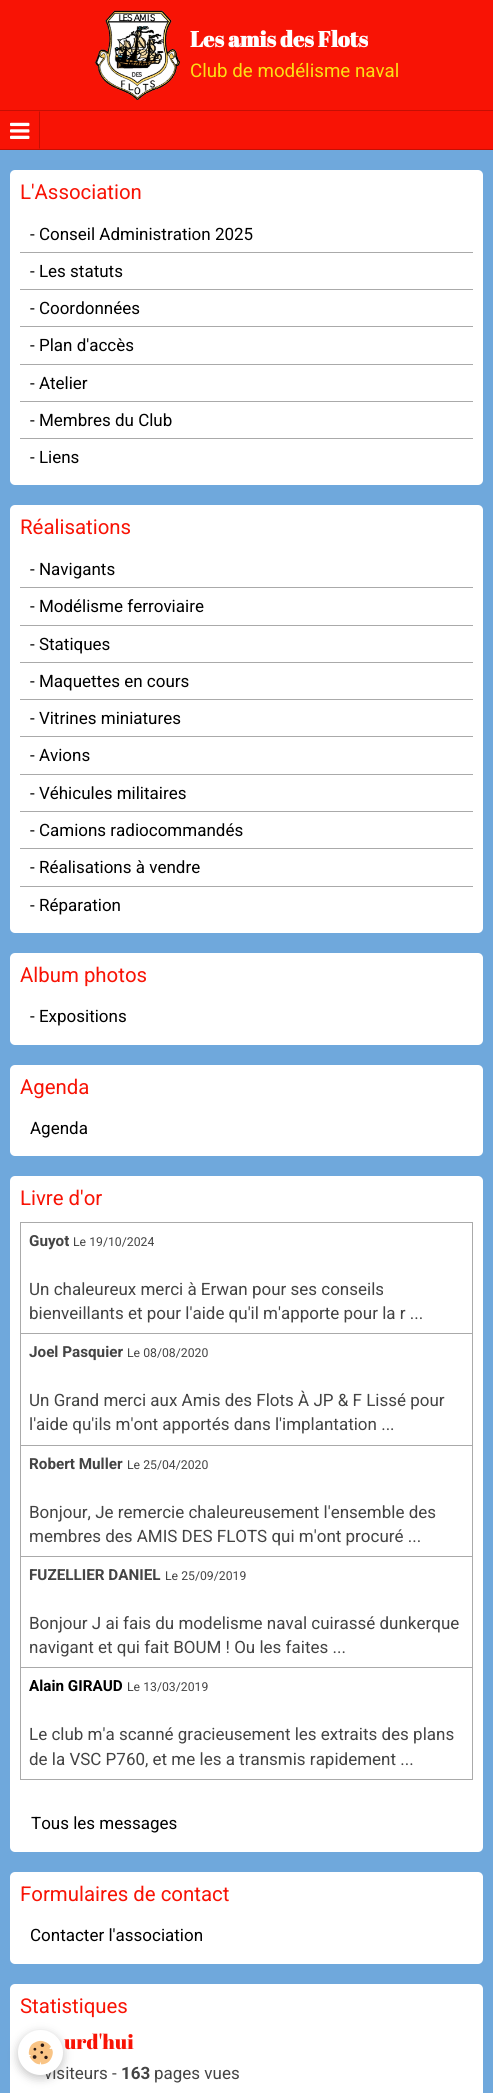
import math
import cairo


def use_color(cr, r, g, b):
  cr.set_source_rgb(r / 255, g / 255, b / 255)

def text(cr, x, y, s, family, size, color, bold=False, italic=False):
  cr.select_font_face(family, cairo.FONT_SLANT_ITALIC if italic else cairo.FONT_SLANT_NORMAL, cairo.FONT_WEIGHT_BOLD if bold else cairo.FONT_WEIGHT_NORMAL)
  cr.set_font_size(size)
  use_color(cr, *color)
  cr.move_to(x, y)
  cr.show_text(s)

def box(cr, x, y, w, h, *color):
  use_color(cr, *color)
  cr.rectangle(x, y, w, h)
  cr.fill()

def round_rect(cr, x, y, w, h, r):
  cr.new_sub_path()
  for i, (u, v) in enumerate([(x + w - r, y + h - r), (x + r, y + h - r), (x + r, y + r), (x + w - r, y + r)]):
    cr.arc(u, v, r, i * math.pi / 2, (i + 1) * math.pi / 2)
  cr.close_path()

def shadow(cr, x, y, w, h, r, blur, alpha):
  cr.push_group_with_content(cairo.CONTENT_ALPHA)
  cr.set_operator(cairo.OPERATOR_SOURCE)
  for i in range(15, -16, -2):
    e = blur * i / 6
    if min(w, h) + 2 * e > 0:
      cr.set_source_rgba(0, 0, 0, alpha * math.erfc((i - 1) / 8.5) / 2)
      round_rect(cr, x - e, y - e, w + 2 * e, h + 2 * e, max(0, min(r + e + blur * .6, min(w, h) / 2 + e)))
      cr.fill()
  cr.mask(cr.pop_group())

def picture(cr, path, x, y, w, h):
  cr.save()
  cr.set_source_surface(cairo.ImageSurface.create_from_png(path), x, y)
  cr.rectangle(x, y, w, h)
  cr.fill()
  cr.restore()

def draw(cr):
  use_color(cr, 111, 168, 220)
  cr.paint()
  box(cr, 0, 0, 493, 149, 248, 19, 5)
  picture(cr, "img_01.png", 94, 10, 86, 90)
  box(cr, 0, 110, 493, 1, 198, 15, 4)
  box(cr, 0, 149, 493, 1, 198, 15, 4)
  cr.new_path()
  cr.move_to(40, 111)
  cr.line_to(40, 149)
  cr.line_to(39, 148)
  cr.line_to(39, 112)
  cr.close_path()
  cr.fill()
  picture(cr, "img_02.png", 10, 122, 20, 17)
  use_color(cr, 255, 255, 255)
  round_rect(cr, 10, 170, 473, 315, 5)
  cr.fill()
  box(cr, 20, 252, 453, 1, 170, 170, 170)
  box(cr, 20, 289, 453, 1, 170, 170, 170)
  box(cr, 20, 326, 453, 1, 170, 170, 170)
  box(cr, 20, 364, 453, 1, 170, 170, 170)
  box(cr, 20, 401, 453, 1, 170, 170, 170)
  box(cr, 20, 438, 453, 1, 170, 170, 170)
  use_color(cr, 255, 255, 255)
  round_rect(cr, 10, 505, 473, 428, 5)
  cr.fill()
  box(cr, 20, 587, 453, 1, 170, 170, 170)
  box(cr, 20, 625, 453, 1, 170, 170, 170)
  box(cr, 20, 662, 453, 1, 170, 170, 170)
  box(cr, 20, 699, 453, 1, 170, 170, 170)
  box(cr, 20, 736, 453, 1, 170, 170, 170)
  box(cr, 20, 774, 453, 1, 170, 170, 170)
  box(cr, 20, 811, 453, 1, 170, 170, 170)
  box(cr, 20, 848, 453, 1, 170, 170, 170)
  box(cr, 20, 886, 453, 1, 170, 170, 170)
  use_color(cr, 255, 255, 255)
  round_rect(cr, 10, 953, 473, 92, 5)
  cr.fill()
  round_rect(cr, 10, 1065, 473, 91, 5)
  cr.fill()
  round_rect(cr, 10, 1176, 473, 676, 5)
  cr.fill()
  cr.rectangle(20.5, 1222.5, 452, 557)
  use_color(cr, 170, 170, 170)
  cr.set_line_width(1)
  cr.stroke()
  box(cr, 21, 1333, 451, 1, 170, 170, 170)
  box(cr, 21, 1445, 451, 1, 170, 170, 170)
  box(cr, 21, 1556, 451, 1, 170, 170, 170)
  box(cr, 21, 1667, 451, 1, 170, 170, 170)
  use_color(cr, 255, 255, 255)
  round_rect(cr, 10, 1872, 473, 92, 5)
  cr.fill()
  round_rect(cr, 10, 1984, 473, 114, 5)
  cr.fill()
  use_color(cr, 0, 0, 0)
  shadow(cr, 18, 2033, 45, 45, 22.5, 5, 0.24)
  text(cr, 190, 47, "Les amis des Flots", "Abril Fatface", 22, (255, 255, 255), bold=True)
  text(cr, 190, 77, "Club de modélisme naval", "Roboto", 18.75, (252, 223, 21))
  text(cr, 20, 199, "L'Association", "Roboto", 20.4, (248, 19, 5))
  text(cr, 30, 240, "- Conseil Administration 2025", "Roboto", 17, (0, 0, 0))
  text(cr, 30, 277, "- Les statuts", "Roboto", 17, (0, 0, 0))
  text(cr, 30, 314, "- Coordonnées", "Roboto", 17, (0, 0, 0))
  text(cr, 30, 351, "- Plan d'accès", "Roboto", 17, (0, 0, 0))
  text(cr, 30, 389, "- Atelier", "Roboto", 17, (0, 0, 0))
  text(cr, 30, 426, "- Membres du Club", "Roboto", 17, (0, 0, 0))
  text(cr, 30, 463, "- Liens", "Roboto", 17, (0, 0, 0))
  text(cr, 20, 534, "Réalisations", "Roboto", 20.4, (248, 19, 5))
  text(cr, 30, 575, "- Navigants", "Roboto", 17, (0, 0, 0))
  text(cr, 30, 612, "- Modélisme ferroviaire", "Roboto", 17, (0, 0, 0))
  text(cr, 30, 650, "- Statiques", "Roboto", 17, (0, 0, 0))
  text(cr, 30, 687, "- Maquettes en cours", "Roboto", 17, (0, 0, 0))
  text(cr, 30, 724, "- Vitrines miniatures", "Roboto", 17, (0, 0, 0))
  text(cr, 30, 761, "- Avions", "Roboto", 17, (0, 0, 0))
  text(cr, 30, 799, "- Véhicules militaires", "Roboto", 17, (0, 0, 0))
  text(cr, 30, 836, "- Camions radiocommandés", "Roboto", 17, (0, 0, 0))
  text(cr, 30, 873, "- Réalisations à vendre", "Roboto", 17, (0, 0, 0))
  text(cr, 30, 911, "- Réparation", "Roboto", 17, (0, 0, 0))
  text(cr, 20, 982, "Album photos", "Roboto", 20.4, (248, 19, 5))
  text(cr, 30, 1022, "- Expositions", "Roboto", 17, (0, 0, 0))
  text(cr, 20, 1094, "Agenda", "Roboto", 20.4, (248, 19, 5))
  text(cr, 30, 1134, "Agenda", "Roboto", 17, (0, 0, 0))
  text(cr, 20, 1205, "Livre d'or", "Roboto", 20.4, (248, 19, 5))
  text(cr, 29, 1246, "Guyot", "Roboto", 15.25, (68, 68, 68), bold=True)
  text(cr, 73, 1246, "Le 19/10/2024", "Roboto", 12.25, (68, 68, 68))
  text(cr, 29, 1295, "Un chaleureux merci à Erwan pour ses conseils", "Roboto", 17, (68, 68, 68))
  text(cr, 29, 1319, "bienveillants et pour l'aide qu'il m'apporte pour la r ...", "Roboto", 17, (68, 68, 68))
  text(cr, 29, 1357, "Joel Pasquier", "Roboto", 15.25, (68, 68, 68), bold=True)
  text(cr, 127, 1357, "Le 08/08/2020", "Roboto", 12.25, (68, 68, 68))
  text(cr, 29, 1406, "Un Grand merci aux Amis des Flots À JP & F Lissé pour", "Roboto", 17, (68, 68, 68))
  text(cr, 29, 1430, "l'aide qu'ils m'ont apportés dans l'implantation ...", "Roboto", 17, (68, 68, 68))
  text(cr, 29, 1469, "Robert Muller", "Roboto", 15.25, (68, 68, 68), bold=True)
  text(cr, 127, 1469, "Le 25/04/2020", "Roboto", 12.25, (68, 68, 68))
  text(cr, 29, 1518, "Bonjour, Je remercie chaleureusement l'ensemble des", "Roboto", 17, (68, 68, 68))
  text(cr, 29, 1542, "membres des AMIS DES FLOTS qui m'ont procuré ...", "Roboto", 17, (68, 68, 68))
  text(cr, 29, 1580, "FUZELLIER DANIEL", "Roboto", 15.25, (68, 68, 68), bold=True)
  text(cr, 165, 1580, "Le 25/09/2019", "Roboto", 12.25, (68, 68, 68))
  text(cr, 29, 1629, "Bonjour J ai fais du modelisme naval cuirassé dunkerque", "Roboto", 17, (68, 68, 68))
  text(cr, 29, 1653, "navigant et qui fait BOUM ! Ou les faites ...", "Roboto", 17, (68, 68, 68))
  text(cr, 29, 1691, "Alain GIRAUD", "Roboto", 15.25, (0, 0, 0), bold=True)
  text(cr, 127, 1691, "Le 13/03/2019", "Roboto", 12.25, (68, 68, 68))
  text(cr, 29, 1740, "Le club m'a scanné gracieusement les extraits des plans", "Roboto", 17, (68, 68, 68))
  text(cr, 29, 1765, "de la VSC P760, et me les a transmis rapidement ...", "Roboto", 17, (68, 68, 68))
  text(cr, 31, 1829, "Tous les messages", "Roboto", 17, (0, 0, 0))
  text(cr, 20, 1901, "Formulaires de contact", "Roboto", 20.4, (248, 19, 5))
  text(cr, 30, 1941, "Contacter l'association", "Roboto", 17, (0, 0, 0))
  text(cr, 20, 2013, "Statistiques", "Roboto", 20.4, (248, 19, 5))
  text(cr, 64, 2049, "urd'hui", "Abril Fatface", 20.4, (248, 19, 5))
  text(cr, 44, 2079, "visiteurs -", "Roboto", 17, (68, 68, 68))
  text(cr, 121, 2079, "163", "Roboto", 17, (68, 68, 68), bold=True)
  text(cr, 154, 2079, "pages vues", "Roboto", 17, (68, 68, 68))
  use_color(cr, 255, 255, 255)
  cr.new_path()
  cr.arc(40.5, 2052.5, 22.5, 0, 2 * math.pi)
  cr.fill()
  picture(cr, "img_03.png", 28, 2040, 25, 25)


surface = cairo.ImageSurface(cairo.FORMAT_RGB24, 493, 2093)
cr = cairo.Context(surface)
options = cairo.FontOptions()
options.set_hint_metrics(cairo.HINT_METRICS_OFF)
options.set_hint_style(cairo.HINT_STYLE_NONE)
cr.set_font_options(options)
cr.set_miter_limit(4)
draw(cr)
surface.write_to_png("out.png")
